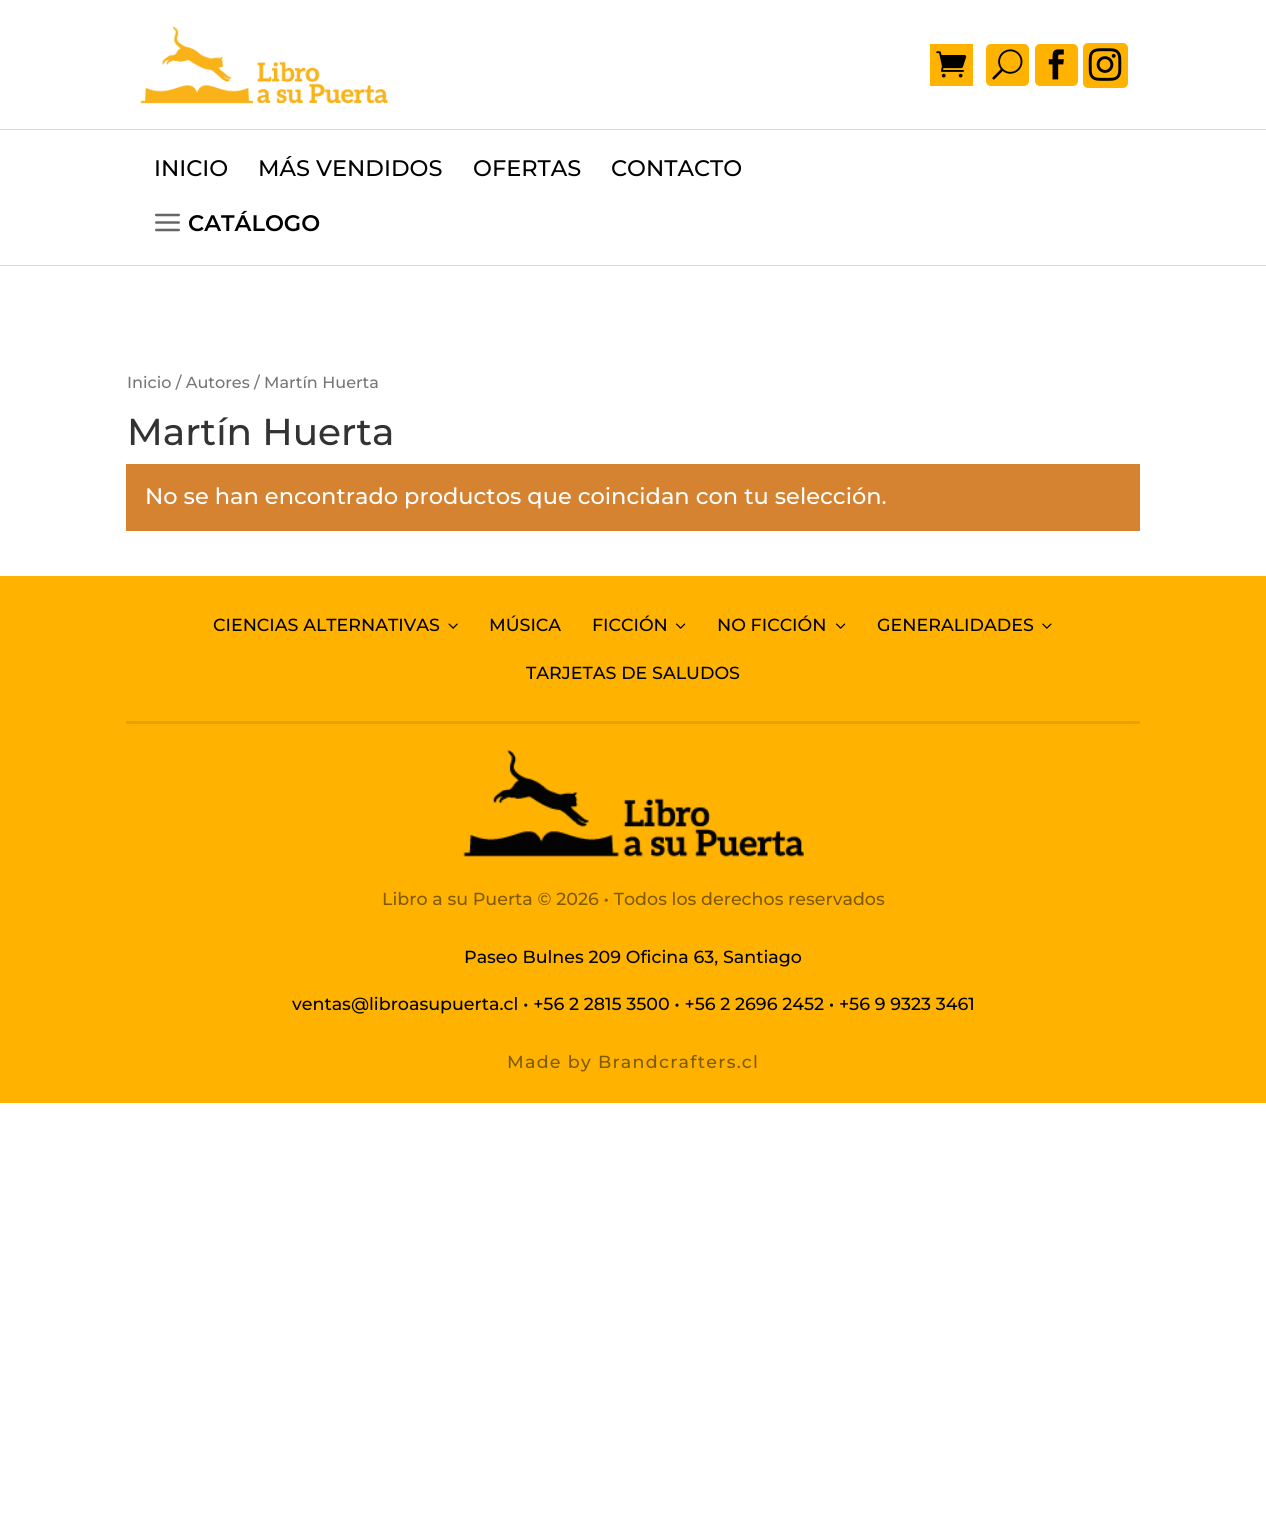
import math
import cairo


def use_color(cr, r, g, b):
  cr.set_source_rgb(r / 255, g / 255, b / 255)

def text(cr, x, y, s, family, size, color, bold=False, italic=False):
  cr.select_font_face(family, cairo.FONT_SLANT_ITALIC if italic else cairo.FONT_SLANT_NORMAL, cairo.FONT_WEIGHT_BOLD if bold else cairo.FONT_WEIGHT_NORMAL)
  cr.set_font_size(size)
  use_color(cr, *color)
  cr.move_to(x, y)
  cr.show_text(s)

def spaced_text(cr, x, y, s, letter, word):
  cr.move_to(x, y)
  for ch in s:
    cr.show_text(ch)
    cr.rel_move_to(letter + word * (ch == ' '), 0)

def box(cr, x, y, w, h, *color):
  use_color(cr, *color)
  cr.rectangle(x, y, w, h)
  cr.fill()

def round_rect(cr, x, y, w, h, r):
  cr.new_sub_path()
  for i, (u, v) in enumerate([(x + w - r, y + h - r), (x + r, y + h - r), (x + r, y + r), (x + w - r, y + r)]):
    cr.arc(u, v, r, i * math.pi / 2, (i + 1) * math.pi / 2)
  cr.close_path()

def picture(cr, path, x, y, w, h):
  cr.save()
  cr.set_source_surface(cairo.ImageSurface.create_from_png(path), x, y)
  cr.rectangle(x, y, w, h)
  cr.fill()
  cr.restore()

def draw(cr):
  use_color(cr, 255, 255, 255)
  cr.paint()
  picture(cr, "img_01.png", 140, 26, 248, 78)
  box(cr, 930, 44, 43, 42, 255, 179, 0)
  picture(cr, "img_02.png", 936, 51, 31, 27)
  round_rect(cr, 986, 44, 43, 42, 5)
  cr.fill()
  picture(cr, "img_03.png", 992, 49, 31, 31)
  round_rect(cr, 1035, 44, 43, 42, 5)
  cr.fill()
  picture(cr, "img_04.png", 1048, 49, 16, 31)
  round_rect(cr, 1083, 43, 45, 45, 5)
  cr.fill()
  picture(cr, "img_05.png", 1088, 48, 34, 33)
  box(cr, 0, 129, 1266, 1, 217, 217, 217)
  box(cr, 0, 265, 1266, 1, 217, 217, 217)
  picture(cr, "img_06.png", 155, 213, 25, 19)
  box(cr, 126, 464, 1014, 67, 213, 131, 48)
  box(cr, 0, 576, 1266, 527, 255, 179, 0)
  box(cr, 126, 721, 1014, 3, 230, 161, 0)
  picture(cr, "img_07.png", 448, 623, 10, 6)
  picture(cr, "img_08.png", 676, 623, 10, 6)
  picture(cr, "img_08.png", 836, 623, 10, 6)
  picture(cr, "img_09.png", 1042, 623, 10, 6)
  picture(cr, "img_10.png", 463, 750, 341, 107)
  text(cr, 154, 176, "INICIO", "Montserrat Thin", 22.5, (0, 0, 0))
  text(cr, 258, 176, "MÁS VENDIDOS", "Montserrat Thin", 22.5, (0, 0, 0))
  text(cr, 473, 176, "OFERTAS", "Montserrat Thin", 22.5, (0, 0, 0))
  text(cr, 611, 176, "CONTACTO", "Montserrat Thin", 22.5, (0, 0, 0))
  text(cr, 188, 231, "CATÁLOGO", "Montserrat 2 Thin", 22.5, (0, 0, 0))
  text(cr, 127, 388, "Inicio / Autores / Martín Huerta", "Montserrat Thin", 16.1, (118, 118, 118))
  text(cr, 127, 445, "Martín Huerta", "Montserrat Thin", 37.5, (51, 51, 51))
  text(cr, 145, 504, "No se han encontrado productos que coincidan con tu selección.", "Montserrat Thin", 22.5, (255, 255, 255))
  text(cr, 213, 631, "CIENCIAS ALTERNATIVAS", "Montserrat Thin", 17.5, (0, 0, 0))
  text(cr, 489, 631, "MÚSICA", "Montserrat Thin", 17.5, (0, 0, 0))
  text(cr, 592, 631, "FICCIÓN", "Montserrat Thin", 17.5, (0, 0, 0))
  text(cr, 717, 631, "NO FICCIÓN", "Montserrat Thin", 17.5, (0, 0, 0))
  text(cr, 877, 631, "GENERALIDADES", "Montserrat Thin", 17.5, (0, 0, 0))
  text(cr, 526, 679, "TARJETAS DE SALUDOS", "Montserrat Thin", 17.5, (0, 0, 0))
  text(cr, 382, 905, "Libro a su Puerta © 2026 • Todos los derechos reservados", "Montserrat Thin", 17.5, (128, 90, 0))
  text(cr, 464, 963, "Paseo Bulnes 209 Oficina 63, Santiago", "Montserrat Thin", 17.5, (0, 0, 0))
  text(cr, 292, 1010, "ventas@libroasupuerta.cl • +56 2 2815 3500 • +56 2 2696 2452 • +56 9 9323 3461", "Montserrat Thin", 17.5, (0, 0, 0))
  use_color(cr, 128, 90, 0)
  spaced_text(cr, 507, 1068, "Made by Brandcrafters.cl", 1.25, 0)


surface = cairo.ImageSurface(cairo.FORMAT_RGB24, 1266, 1518)
cr = cairo.Context(surface)
options = cairo.FontOptions()
options.set_hint_metrics(cairo.HINT_METRICS_OFF)
options.set_hint_style(cairo.HINT_STYLE_NONE)
cr.set_font_options(options)
cr.set_miter_limit(4)
draw(cr)
surface.write_to_png("out.png")
